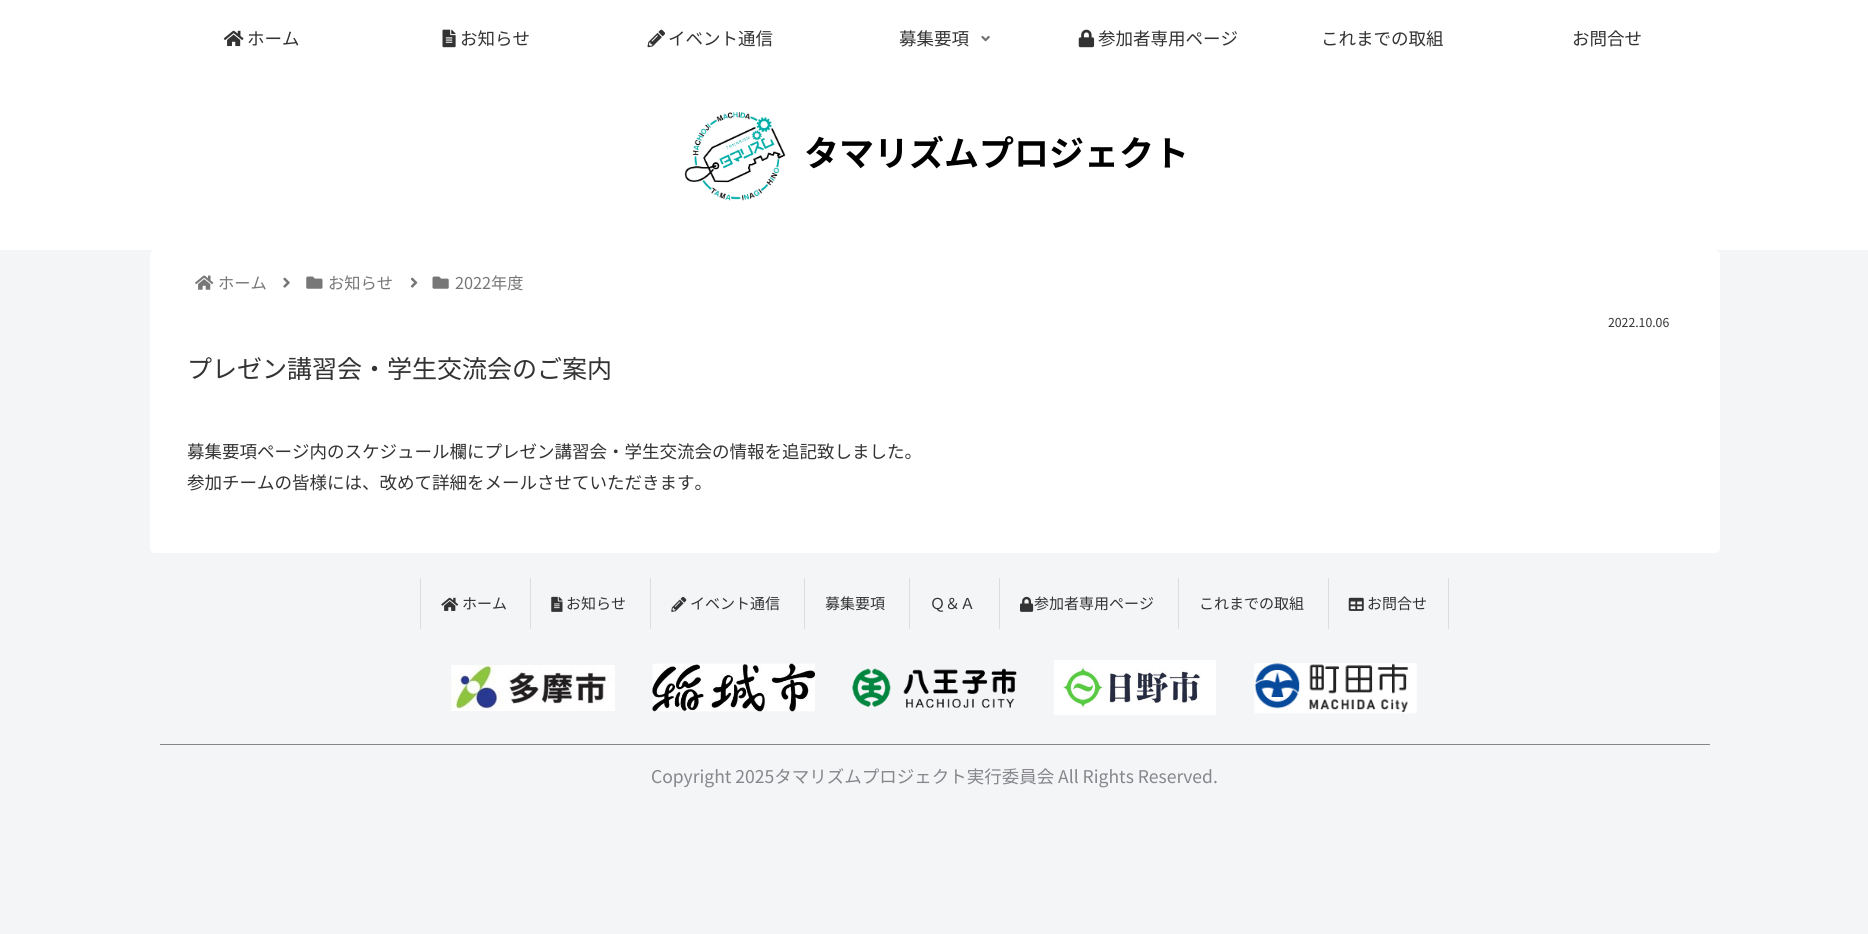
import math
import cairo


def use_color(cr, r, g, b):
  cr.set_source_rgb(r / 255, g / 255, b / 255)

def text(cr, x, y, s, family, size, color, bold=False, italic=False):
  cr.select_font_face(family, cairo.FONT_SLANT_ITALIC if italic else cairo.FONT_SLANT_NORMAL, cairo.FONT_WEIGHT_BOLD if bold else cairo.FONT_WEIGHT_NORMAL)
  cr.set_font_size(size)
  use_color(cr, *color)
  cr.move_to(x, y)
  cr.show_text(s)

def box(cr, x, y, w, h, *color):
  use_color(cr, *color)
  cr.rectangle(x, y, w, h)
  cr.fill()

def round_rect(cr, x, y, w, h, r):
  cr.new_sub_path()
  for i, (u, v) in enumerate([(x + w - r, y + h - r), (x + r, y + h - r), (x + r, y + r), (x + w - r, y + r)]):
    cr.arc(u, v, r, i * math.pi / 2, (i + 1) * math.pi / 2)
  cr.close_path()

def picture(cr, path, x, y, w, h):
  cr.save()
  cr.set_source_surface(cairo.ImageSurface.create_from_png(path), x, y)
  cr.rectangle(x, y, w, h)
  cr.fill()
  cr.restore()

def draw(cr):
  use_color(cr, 244, 245, 247)
  cr.paint()
  box(cr, 0, 0, 1868, 250, 255, 255, 255)
  picture(cr, "img_01.png", 223, 30, 21, 17)
  picture(cr, "img_02.png", 442, 29, 14, 19)
  picture(cr, "img_03.png", 647, 29, 18, 19)
  picture(cr, "img_04.png", 981, 35, 9, 7)
  picture(cr, "img_05.png", 1078, 29, 17, 19)
  picture(cr, "img_06.png", 684, 112, 102, 89)
  round_rect(cr, 150, 250, 1570, 303, 5)
  cr.fill()
  picture(cr, "img_07.png", 195, 275, 19, 15)
  picture(cr, "img_08.png", 283, 277, 7, 11)
  picture(cr, "img_09.png", 306, 276, 17, 13)
  picture(cr, "img_10.png", 410, 277, 8, 11)
  picture(cr, "img_11.png", 432, 276, 17, 13)
  box(cr, 420, 578, 1, 51, 221, 221, 221)
  picture(cr, "img_12.png", 441, 597, 18, 14)
  box(cr, 530, 578, 1, 51, 221, 221, 221)
  picture(cr, "img_13.png", 551, 596, 12, 16)
  box(cr, 650, 578, 1, 51, 221, 221, 221)
  picture(cr, "img_14.png", 671, 596, 16, 16)
  box(cr, 804, 578, 1, 51, 221, 221, 221)
  box(cr, 909, 578, 1, 51, 221, 221, 221)
  box(cr, 999, 578, 1, 51, 221, 221, 221)
  picture(cr, "img_15.png", 1020, 596, 14, 16)
  box(cr, 1178, 578, 1, 51, 221, 221, 221)
  box(cr, 1448, 578, 1, 51, 221, 221, 221)
  box(cr, 1328, 578, 1, 51, 221, 221, 221)
  picture(cr, "img_16.png", 1348, 597, 16, 14)
  picture(cr, "img_17.png", 451, 665, 164, 46)
  picture(cr, "img_18.png", 652, 663, 163, 49)
  picture(cr, "img_19.png", 852, 668, 165, 40)
  picture(cr, "img_20.png", 1054, 660, 162, 55)
  picture(cr, "img_21.png", 1254, 663, 163, 51)
  box(cr, 160, 744, 1550, 1, 134, 134, 139)
  text(cr, 247, 45, "ホーム", "Noto Sans JP", 17.5, (51, 51, 51))
  text(cr, 460, 45, "お知らせ", "Noto Sans JP", 17.5, (51, 51, 51))
  text(cr, 668, 45, "イベント通信", "Noto Sans JP", 17.5, (51, 51, 51))
  text(cr, 899, 45, "募集要項", "Noto Sans JP", 17.5, (51, 51, 51))
  text(cr, 1098, 45, "参加者専用ページ", "Noto Sans JP", 17.5, (51, 51, 51))
  text(cr, 1321, 45, "これまでの取組", "Noto Sans JP", 17.5, (51, 51, 51))
  text(cr, 1572, 45, "お問合せ", "Noto Sans JP", 17.5, (51, 51, 51))
  text(cr, 804, 166, "タマリズムプロジェクト", "Noto Sans JP", 35, (0, 0, 0), bold=True)
  text(cr, 218, 289, "ホーム", "Noto Sans JP", 16.25, (119, 119, 119))
  text(cr, 328, 289, "お知らせ", "Noto Sans JP", 16.25, (119, 119, 119))
  text(cr, 455, 289, "2022年度", "Noto Sans JP", 16.25, (119, 119, 119))
  text(cr, 1608, 327, "2022.10.06", "Noto Sans JP", 12.25, (51, 51, 51))
  text(cr, 187, 378, "プレゼン講習会・学生交流会のご案内", "Noto Sans JP", 25, (51, 51, 51))
  text(cr, 187, 458, "募集要項ページ内のスケジュール欄にプレゼン講習会・学生交流会の情報を追記致しました。", "Noto Sans JP", 17.5, (51, 51, 51))
  text(cr, 187, 489, "参加チームの皆様には、改めて詳細をメールさせていただきます。", "Noto Sans JP", 17.5, (51, 51, 51))
  text(cr, 462, 609, "ホーム", "Noto Sans JP", 15, (51, 51, 51))
  text(cr, 566, 609, "お知らせ", "Noto Sans JP", 15, (51, 51, 51))
  text(cr, 690, 609, "イベント通信", "Noto Sans JP", 15, (51, 51, 51))
  text(cr, 825, 609, "募集要項", "Noto Sans JP", 15, (51, 51, 51))
  text(cr, 930, 609, "Ｑ＆Ａ", "Noto Sans JP", 15, (51, 51, 51))
  text(cr, 1034, 609, "参加者専用ページ", "Noto Sans JP", 15, (51, 51, 51))
  text(cr, 1199, 609, "これまでの取組", "Noto Sans JP", 15, (51, 51, 51))
  text(cr, 1367, 609, "お問合せ", "Noto Sans JP", 15, (51, 51, 51))
  text(cr, 651, 783, "Copyright 2025タマリズムプロジェクト実行委員会 All Rights Reserved.", "Noto Sans JP", 17.5, (134, 134, 139))


surface = cairo.ImageSurface(cairo.FORMAT_RGB24, 1868, 934)
cr = cairo.Context(surface)
options = cairo.FontOptions()
options.set_hint_metrics(cairo.HINT_METRICS_OFF)
options.set_hint_style(cairo.HINT_STYLE_NONE)
cr.set_font_options(options)
cr.set_miter_limit(4)
draw(cr)
surface.write_to_png("out.png")
